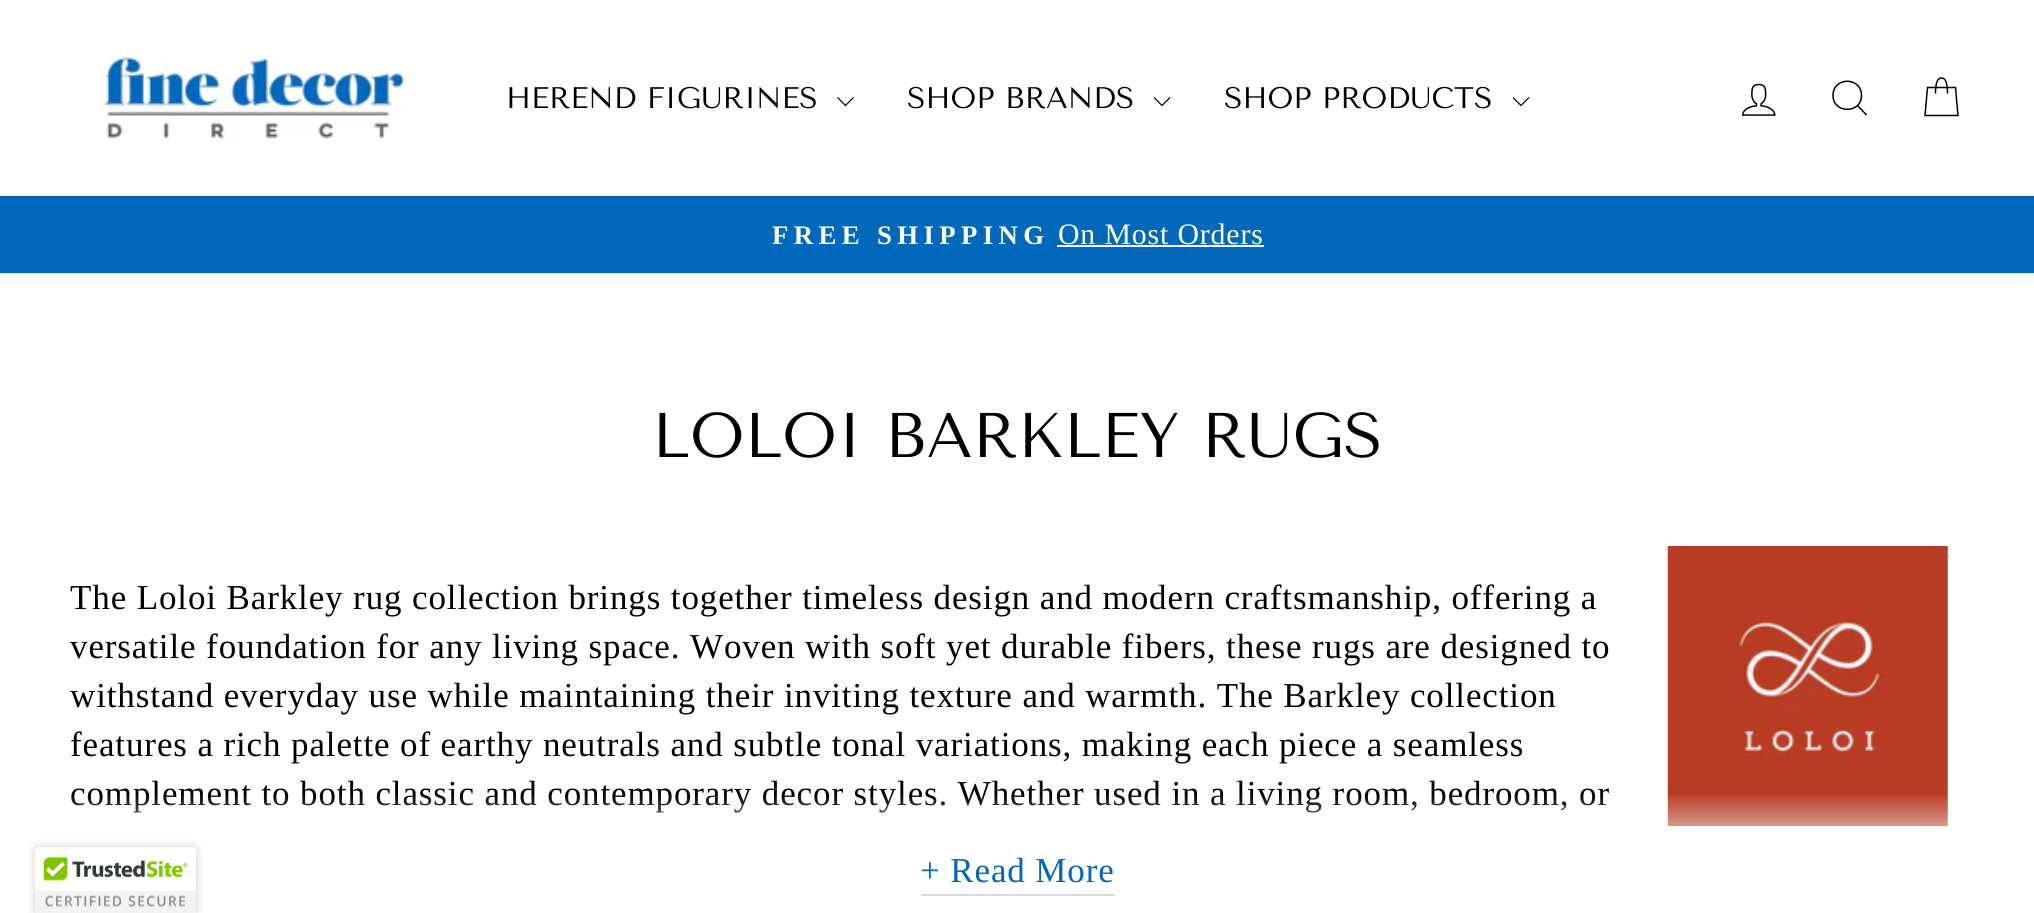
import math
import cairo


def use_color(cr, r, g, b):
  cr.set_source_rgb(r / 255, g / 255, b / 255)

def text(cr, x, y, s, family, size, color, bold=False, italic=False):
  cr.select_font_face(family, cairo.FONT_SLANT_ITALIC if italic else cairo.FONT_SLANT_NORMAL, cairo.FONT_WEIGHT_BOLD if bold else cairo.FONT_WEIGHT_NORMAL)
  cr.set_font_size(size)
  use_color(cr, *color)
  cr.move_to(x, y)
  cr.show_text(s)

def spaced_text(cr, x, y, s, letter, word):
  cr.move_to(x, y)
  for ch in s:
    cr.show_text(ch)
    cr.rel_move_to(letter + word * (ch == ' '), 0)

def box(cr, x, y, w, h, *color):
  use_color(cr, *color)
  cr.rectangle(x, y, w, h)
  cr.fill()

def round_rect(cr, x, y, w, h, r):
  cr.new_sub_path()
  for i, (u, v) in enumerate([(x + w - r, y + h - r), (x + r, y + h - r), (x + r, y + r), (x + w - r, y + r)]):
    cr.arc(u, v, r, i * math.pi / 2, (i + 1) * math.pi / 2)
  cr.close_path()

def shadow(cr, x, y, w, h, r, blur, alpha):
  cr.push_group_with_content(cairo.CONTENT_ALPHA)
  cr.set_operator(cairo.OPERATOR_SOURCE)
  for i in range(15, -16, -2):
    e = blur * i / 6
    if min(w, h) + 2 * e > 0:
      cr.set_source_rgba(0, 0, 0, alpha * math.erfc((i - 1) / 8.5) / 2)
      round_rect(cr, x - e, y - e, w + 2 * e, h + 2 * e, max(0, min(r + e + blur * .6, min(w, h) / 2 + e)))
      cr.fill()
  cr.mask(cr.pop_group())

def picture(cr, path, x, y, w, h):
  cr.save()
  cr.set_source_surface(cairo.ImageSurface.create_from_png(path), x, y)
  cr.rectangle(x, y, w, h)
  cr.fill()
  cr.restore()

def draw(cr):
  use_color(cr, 255, 255, 255)
  cr.paint()
  box(cr, 0, 196, 2034, 77, 2, 104, 188)
  cr.save()
  cr.rectangle(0, 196, 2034, 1)
  cr.clip()
  use_color(cr, 0, 0, 0)
  shadow(cr, 0, 0, 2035, 196, 0, 1, 0.2)
  cr.restore()
  picture(cr, "img_01.png", 103, 54, 303, 89)
  cr.new_path()
  cr.move_to(837.5, 97.5)
  cr.line_to(845.5, 105.5)
  cr.line_to(853.5, 97.5)
  use_color(cr, 0, 0, 0)
  cr.set_line_width(1.2)
  cr.stroke()
  cr.new_path()
  cr.move_to(1154, 97.5)
  cr.line_to(1162, 105.5)
  cr.line_to(1170, 97.5)
  cr.stroke()
  cr.new_path()
  cr.move_to(1513, 97.5)
  cr.line_to(1521, 105.5)
  cr.line_to(1529, 97.5)
  cr.stroke()
  picture(cr, "img_02.png", 1741, 83, 35, 33)
  cr.new_path()
  cr.move_to(1861.5, 95.5)
  cr.curve_to(1861.5, 114, 1833, 114, 1833, 95.5)
  cr.curve_to(1833, 76.5, 1861.5, 76.5, 1861.5, 95.5)
  cr.close_path()
  cr.move_to(1866.5, 115)
  cr.line_to(1857.5, 105.5)
  cr.set_line_width(1.5)
  cr.stroke()
  cr.new_path()
  cr.move_to(1935.5, 93.5)
  cr.curve_to(1935.5, 81.5, 1938, 78, 1941.5, 78)
  cr.curve_to(1945, 78, 1947.5, 81.5, 1947.5, 93.5)
  cr.move_to(1927.5, 87.5)
  cr.line_to(1955.5, 87.5)
  cr.line_to(1958, 115.5)
  cr.line_to(1925, 115.5)
  cr.close_path()
  cr.stroke()
  box(cr, 1057, 245, 207, 2, 255, 255, 255)
  picture(cr, "img_03.png", 1667, 546, 281, 280)
  box(cr, 921, 894, 194, 2, 217, 217, 217)
  use_color(cr, 0, 0, 0)
  shadow(cr, 35, 847, 161, 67, 4, 4.5, 0.2)
  picture(cr, "img_04.png", 35, 847, 161, 66)
  text(cr, 506, 108, "HEREND FIGURINES", "Tenor Sans", 29.75, (0, 0, 0))
  text(cr, 907, 108, "SHOP BRANDS", "Tenor Sans", 29.75, (0, 0, 0))
  text(cr, 1224, 108, "SHOP PRODUCTS", "Tenor Sans", 29.75, (0, 0, 0))
  cr.select_font_face("Liberation Serif", cairo.FONT_SLANT_NORMAL, cairo.FONT_WEIGHT_BOLD)
  cr.set_font_size(26.75)
  use_color(cr, 255, 255, 255)
  spaced_text(cr, 772, 244, "FREE SHIPPING", 5.4, 0)
  cr.select_font_face("Liberation Serif")
  cr.set_font_size(29.75)
  spaced_text(cr, 1058, 244, "On Most Orders", 0.88, 0)
  text(cr, 652, 457, "LOLOI BARKLEY RUGS", "Tenor Sans", 63, (0, 0, 0))
  cr.select_font_face("Liberation Serif")
  cr.set_font_size(35)
  spaced_text(cr, 70, 609, "The Loloi Barkley rug collection brings together timeless design and modern craftsmanship, offering a", 0.88, 0)
  spaced_text(cr, 70, 658, "versatile foundation for any living space. Woven with soft yet durable fibers, these rugs are designed to", 0.88, 0)
  spaced_text(cr, 70, 707, "withstand everyday use while maintaining their inviting texture and warmth. The Barkley collection", 0.88, 0)
  spaced_text(cr, 70, 756, "features a rich palette of earthy neutrals and subtle tonal variations, making each piece a seamless", 0.88, 0)
  spaced_text(cr, 70, 805, "complement to both classic and contemporary decor styles. Whether used in a living room, bedroom, or", 0.88, 0)
  gradient = cairo.LinearGradient(1018, 793, 1018, 896)
  gradient.add_color_stop_rgba(0, 1, 1, 1, 0)
  gradient.add_color_stop_rgba(0.7, 1, 1, 1, 1)
  cr.set_source(gradient)
  cr.rectangle(71, 795, 1877, 31)
  cr.fill()
  use_color(cr, 2, 104, 188)
  spaced_text(cr, 920, 882, "+ Read More", 0.88, 0)


surface = cairo.ImageSurface(cairo.FORMAT_RGB24, 2034, 913)
cr = cairo.Context(surface)
options = cairo.FontOptions()
options.set_hint_metrics(cairo.HINT_METRICS_OFF)
options.set_hint_style(cairo.HINT_STYLE_NONE)
cr.set_font_options(options)
cr.set_miter_limit(4)
draw(cr)
surface.write_to_png("out.png")
